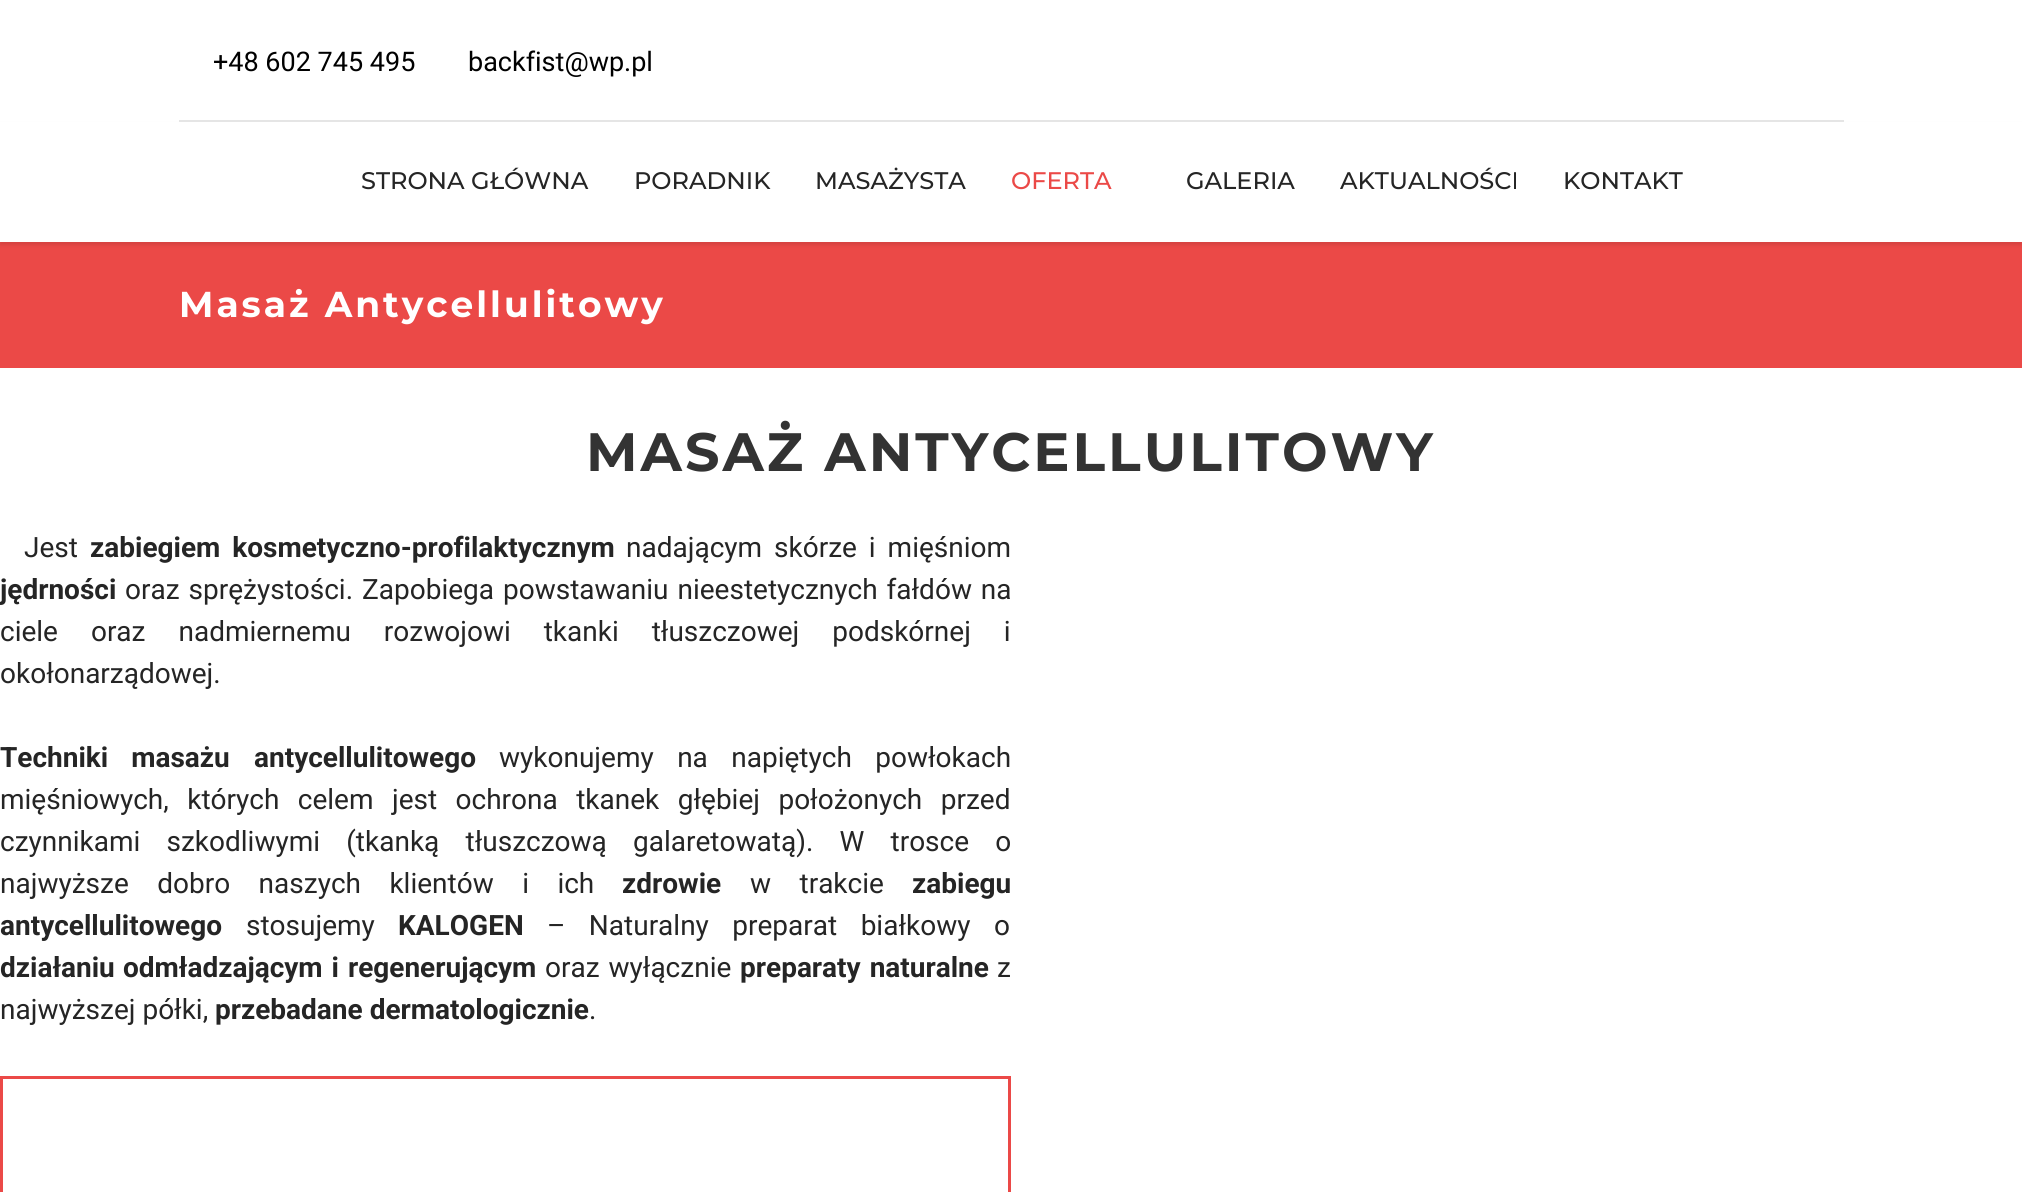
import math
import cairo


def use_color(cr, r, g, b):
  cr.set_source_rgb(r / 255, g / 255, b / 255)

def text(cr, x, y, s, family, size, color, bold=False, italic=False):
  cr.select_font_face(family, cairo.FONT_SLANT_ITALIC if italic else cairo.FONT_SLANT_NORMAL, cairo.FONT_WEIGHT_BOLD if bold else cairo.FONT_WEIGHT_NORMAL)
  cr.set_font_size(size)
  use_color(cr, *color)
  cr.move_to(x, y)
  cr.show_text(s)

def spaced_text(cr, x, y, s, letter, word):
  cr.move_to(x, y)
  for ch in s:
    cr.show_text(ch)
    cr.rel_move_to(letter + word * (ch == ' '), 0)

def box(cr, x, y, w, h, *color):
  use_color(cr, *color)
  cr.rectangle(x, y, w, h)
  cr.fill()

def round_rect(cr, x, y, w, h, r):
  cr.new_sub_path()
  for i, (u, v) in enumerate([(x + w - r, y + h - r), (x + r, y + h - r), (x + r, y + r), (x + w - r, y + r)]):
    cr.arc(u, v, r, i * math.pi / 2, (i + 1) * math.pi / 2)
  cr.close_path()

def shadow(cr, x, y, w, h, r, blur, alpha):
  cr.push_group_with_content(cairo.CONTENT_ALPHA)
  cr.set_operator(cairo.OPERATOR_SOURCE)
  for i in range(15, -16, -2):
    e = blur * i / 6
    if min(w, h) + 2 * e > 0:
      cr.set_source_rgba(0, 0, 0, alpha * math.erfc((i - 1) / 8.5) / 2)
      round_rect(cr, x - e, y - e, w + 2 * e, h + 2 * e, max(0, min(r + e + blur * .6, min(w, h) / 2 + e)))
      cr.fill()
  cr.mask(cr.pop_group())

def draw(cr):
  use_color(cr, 255, 255, 255)
  cr.paint()
  box(cr, 0, 242, 2022, 126, 235, 73, 71)
  use_color(cr, 0, 0, 0)
  shadow(cr, 0, 125, 2022, 120, 0, 2, 0.1)
  box(cr, 179, 120, 1665, 2, 229, 229, 229)
  box(cr, 0, 122, 2022, 120, 255, 255, 255)
  cr.rectangle(1.5, 1077.5, 1008, 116)
  use_color(cr, 235, 73, 71)
  cr.set_line_width(3)
  cr.stroke()
  text(cr, 213, 71, "+48 602 745 495", "Roboto", 27, (0, 0, 0))
  text(cr, 468, 71, "backfist@wp.pl", "Roboto", 27, (0, 0, 0))
  text(cr, 361, 189, "STRONA GŁÓWNA", "Montserrat Medium", 24, (37, 37, 37))
  text(cr, 634, 189, "PORADNIK", "Montserrat Medium", 24, (37, 37, 37))
  text(cr, 815, 189, "MASAŻYSTA", "Montserrat Medium", 24, (37, 37, 37))
  text(cr, 1011, 189, "OFERTA", "Montserrat Medium", 24, (235, 73, 71))
  text(cr, 1186, 189, "GALERIA", "Montserrat Medium", 24, (37, 37, 37))
  text(cr, 1340, 189, "AKTUALNOŚCI", "Montserrat Medium", 24, (37, 37, 37))
  text(cr, 1563, 189, "KONTAKT", "Montserrat Medium", 24, (37, 37, 37))
  cr.select_font_face("Montserrat", cairo.FONT_SLANT_NORMAL, cairo.FONT_WEIGHT_BOLD)
  cr.set_font_size(36)
  use_color(cr, 255, 255, 255)
  spaced_text(cr, 179, 317, "Masaż Antycellulitowy", 3, 0)
  cr.set_font_size(54)
  use_color(cr, 51, 51, 51)
  spaced_text(cr, 586, 471, "MASAŻ ANTYCELLULITOWY", 3, 0)
  text(cr, 24, 557, "Jest", "Roboto", 28, (37, 37, 37))
  cr.select_font_face("Roboto", cairo.FONT_SLANT_NORMAL, cairo.FONT_WEIGHT_BOLD)
  spaced_text(cr, 90, 557, "zabiegiem kosmetyczno-profilaktycznym", 0, 5)
  cr.select_font_face("Roboto")
  spaced_text(cr, 626, 557, "nadającym skórze i mięśniom", 0, 5)
  text(cr, 0, 599, "jędrności", "Roboto", 28, (37, 37, 37), bold=True)
  cr.select_font_face("Roboto")
  spaced_text(cr, 125, 599, "oraz sprężystości. Zapobiega powstawaniu nieestetycznych fałdów na", 0, 2)
  spaced_text(cr, 0, 641, "ciele oraz nadmiernemu rozwojowi tkanki tłuszczowej podskórnej i", 0, 26)
  text(cr, 0, 683, "okołonarządowej.", "Roboto", 28, (37, 37, 37))
  cr.select_font_face("Roboto", cairo.FONT_SLANT_NORMAL, cairo.FONT_WEIGHT_BOLD)
  spaced_text(cr, 0, 767, "Techniki masażu", 0, 16)
  text(cr, 254, 767, "antycellulitowego", "Roboto", 28, (37, 37, 37), bold=True)
  cr.select_font_face("Roboto")
  spaced_text(cr, 499, 767, "wykonujemy na napiętych powłokach", 0, 16.5)
  spaced_text(cr, 0, 809, "mięśniowych, których celem jest ochrona tkanek głębiej położonych przed", 0, 11.5)
  spaced_text(cr, 0, 851, "czynnikami szkodliwymi (tkanką tłuszczową galaretowatą). W trosce o", 0, 19.25)
  spaced_text(cr, 0, 893, "najwyższe dobro naszych klientów i ich", 0, 21.5)
  text(cr, 622, 893, "zdrowie", "Roboto", 28, (37, 37, 37), bold=True)
  cr.select_font_face("Roboto")
  spaced_text(cr, 750, 893, "w trakcie", 0, 21.5)
  text(cr, 912, 893, "zabiegu", "Roboto", 28, (37, 37, 37), bold=True)
  text(cr, 0, 935, "antycellulitowego", "Roboto", 28, (37, 37, 37), bold=True)
  text(cr, 246, 935, "stosujemy", "Roboto", 28, (37, 37, 37))
  text(cr, 398, 935, "KALOGEN", "Roboto", 28, (37, 37, 37), bold=True)
  cr.select_font_face("Roboto")
  spaced_text(cr, 547, 935, "– Naturalny preparat białkowy o", 0, 16.5)
  text(cr, 0, 977, "działaniu", "Roboto", 28, (37, 37, 37), bold=True)
  spaced_text(cr, 123, 977, "odmładzającym i regenerującym", 0, 2)
  cr.select_font_face("Roboto")
  spaced_text(cr, 545, 977, "oraz wyłącznie", 0, 2)
  cr.select_font_face("Roboto", cairo.FONT_SLANT_NORMAL, cairo.FONT_WEIGHT_BOLD)
  spaced_text(cr, 740, 977, "preparaty naturalne", 0, 2)
  text(cr, 997, 977, "z", "Roboto", 28, (37, 37, 37))
  text(cr, 0, 1019, "najwyższej półki,", "Roboto", 28, (37, 37, 37))
  text(cr, 215, 1019, "przebadane dermatologicznie", "Roboto", 28, (37, 37, 37), bold=True)
  text(cr, 589, 1019, ".", "Roboto", 28, (37, 37, 37))


surface = cairo.ImageSurface(cairo.FORMAT_RGB24, 2022, 1192)
cr = cairo.Context(surface)
options = cairo.FontOptions()
options.set_hint_metrics(cairo.HINT_METRICS_OFF)
options.set_hint_style(cairo.HINT_STYLE_NONE)
cr.set_font_options(options)
cr.set_miter_limit(4)
draw(cr)
surface.write_to_png("out.png")
